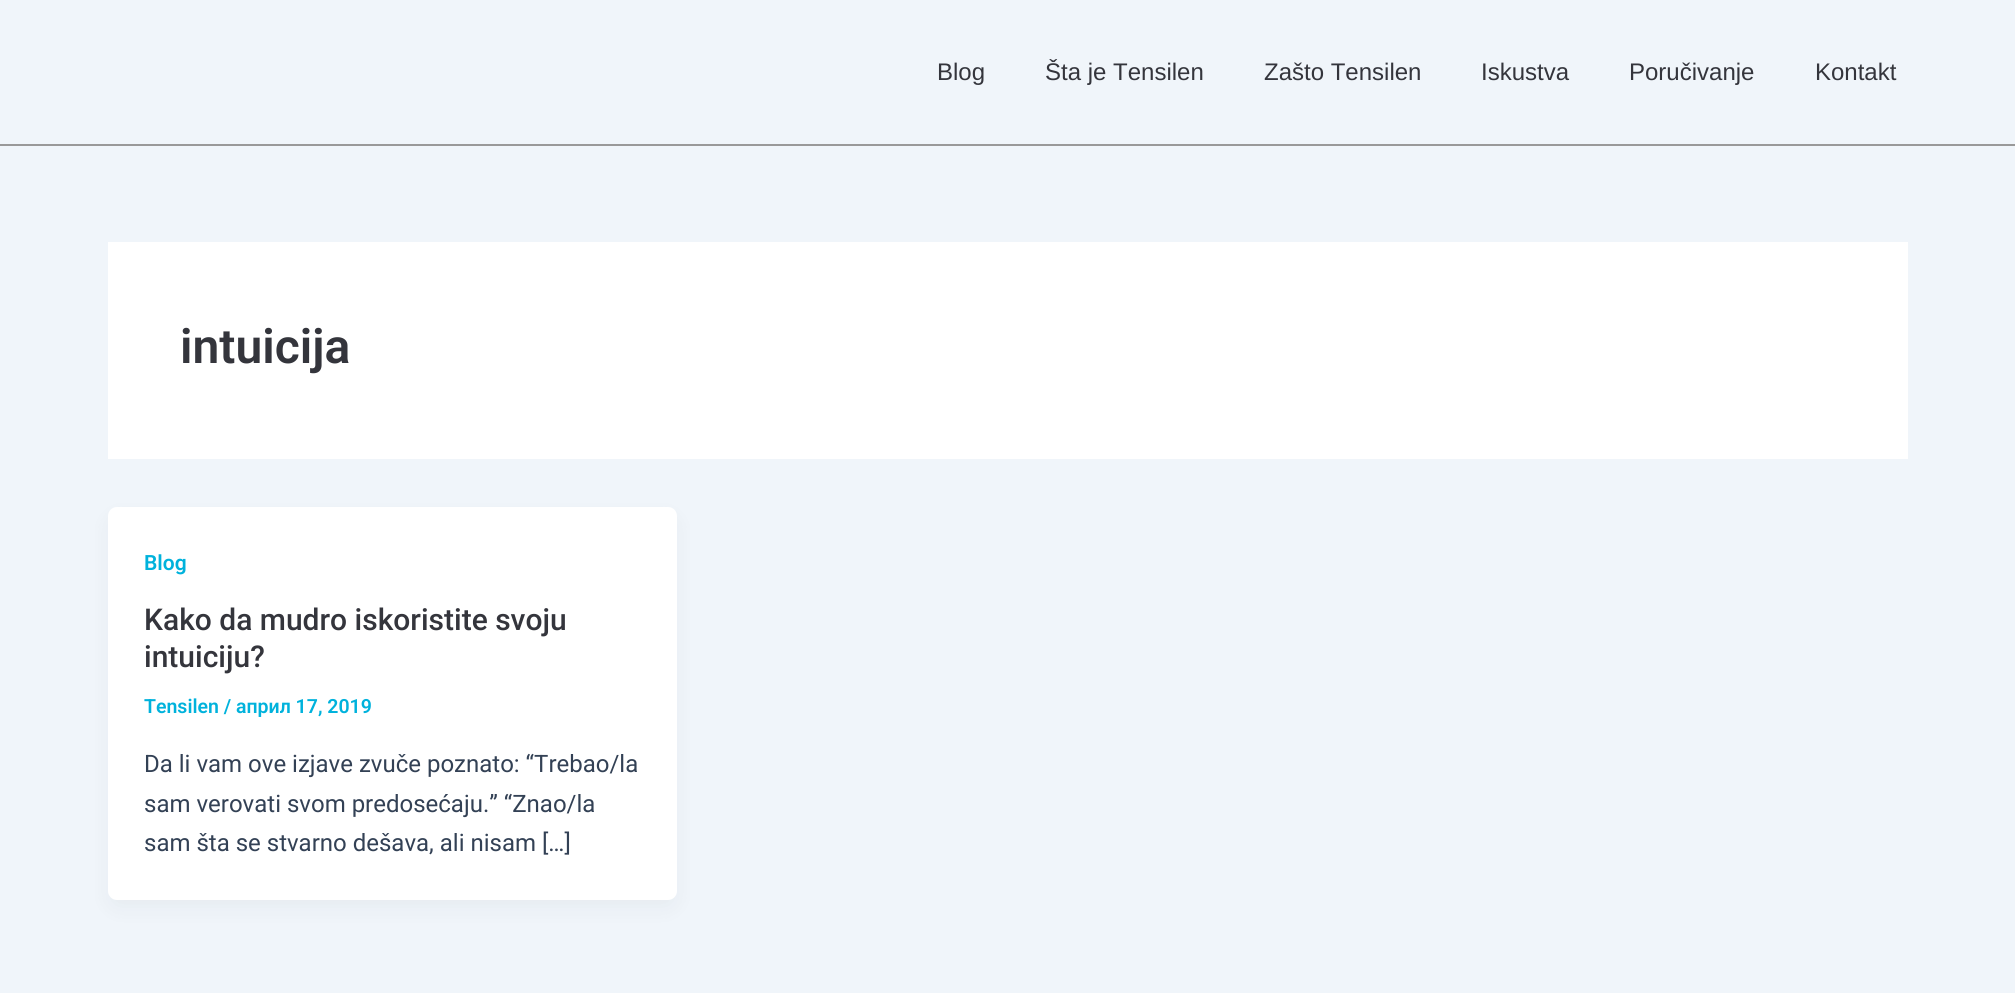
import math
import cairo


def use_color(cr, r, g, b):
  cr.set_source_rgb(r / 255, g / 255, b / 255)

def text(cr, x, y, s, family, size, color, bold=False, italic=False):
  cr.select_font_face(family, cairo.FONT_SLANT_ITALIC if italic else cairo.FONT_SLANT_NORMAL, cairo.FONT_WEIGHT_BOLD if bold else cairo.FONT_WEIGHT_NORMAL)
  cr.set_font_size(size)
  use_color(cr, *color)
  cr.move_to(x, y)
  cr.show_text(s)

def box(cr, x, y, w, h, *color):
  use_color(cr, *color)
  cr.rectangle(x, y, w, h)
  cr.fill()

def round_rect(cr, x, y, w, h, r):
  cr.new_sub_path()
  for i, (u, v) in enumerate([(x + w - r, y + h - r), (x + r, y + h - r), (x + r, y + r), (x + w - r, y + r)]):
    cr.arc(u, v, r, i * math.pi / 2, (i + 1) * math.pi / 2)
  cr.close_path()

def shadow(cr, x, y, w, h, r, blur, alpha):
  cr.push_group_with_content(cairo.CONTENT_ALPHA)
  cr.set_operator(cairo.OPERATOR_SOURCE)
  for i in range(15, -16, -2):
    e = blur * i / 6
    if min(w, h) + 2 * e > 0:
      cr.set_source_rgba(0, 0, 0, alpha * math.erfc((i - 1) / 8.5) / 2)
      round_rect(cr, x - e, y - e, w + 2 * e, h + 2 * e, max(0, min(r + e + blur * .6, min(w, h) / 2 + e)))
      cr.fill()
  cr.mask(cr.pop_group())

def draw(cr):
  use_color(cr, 240, 245, 250)
  cr.paint()
  box(cr, 0, 144, 2015, 2, 153, 153, 153)
  box(cr, 108, 242, 1800, 217, 255, 255, 255)
  use_color(cr, 16, 24, 40)
  shadow(cr, 111, 519, 563, 387, 6, 11, 0.05)
  use_color(cr, 255, 255, 255)
  round_rect(cr, 108, 507, 569, 393, 9)
  cr.fill()
  text(cr, 937, 80, "Blog", "Liberation Sans", 24, (52, 53, 60))
  text(cr, 1045, 80, "Šta je Tensilen", "Liberation Sans", 24, (52, 53, 60))
  text(cr, 1264, 80, "Zašto Tensilen", "Liberation Sans", 24, (52, 53, 60))
  text(cr, 1481, 80, "Iskustva", "Liberation Sans", 24, (52, 53, 60))
  text(cr, 1629, 80, "Poručivanje", "Liberation Sans", 24, (52, 53, 60))
  text(cr, 1815, 80, "Kontakt", "Liberation Sans", 24, (52, 53, 60))
  text(cr, 180, 363, "intuicija", "Roboto SemiBold", 48, (52, 53, 60))
  text(cr, 144, 570, "Blog", "Roboto SemiBold", 21, (0, 178, 220))
  text(cr, 144, 630, "Kako da mudro iskoristite svoju", "Roboto Medium", 30, (52, 53, 60))
  text(cr, 144, 667, "intuiciju?", "Roboto Medium", 30, (52, 53, 60))
  text(cr, 144, 713, "Tensilen / април 17, 2019", "Roboto SemiBold", 19.5, (0, 178, 220))
  text(cr, 144, 772, "Da li vam ove izjave zvuče poznato: “Trebao/la", "Roboto", 24, (51, 65, 85))
  text(cr, 144, 812, "sam verovati svom predosećaju.” “Znao/la", "Roboto", 24, (51, 65, 85))
  text(cr, 144, 851, "sam šta se stvarno dešava, ali nisam […]", "Roboto", 24, (51, 65, 85))


surface = cairo.ImageSurface(cairo.FORMAT_RGB24, 2015, 993)
cr = cairo.Context(surface)
options = cairo.FontOptions()
options.set_hint_metrics(cairo.HINT_METRICS_OFF)
options.set_hint_style(cairo.HINT_STYLE_NONE)
cr.set_font_options(options)
cr.set_miter_limit(4)
draw(cr)
surface.write_to_png("out.png")
